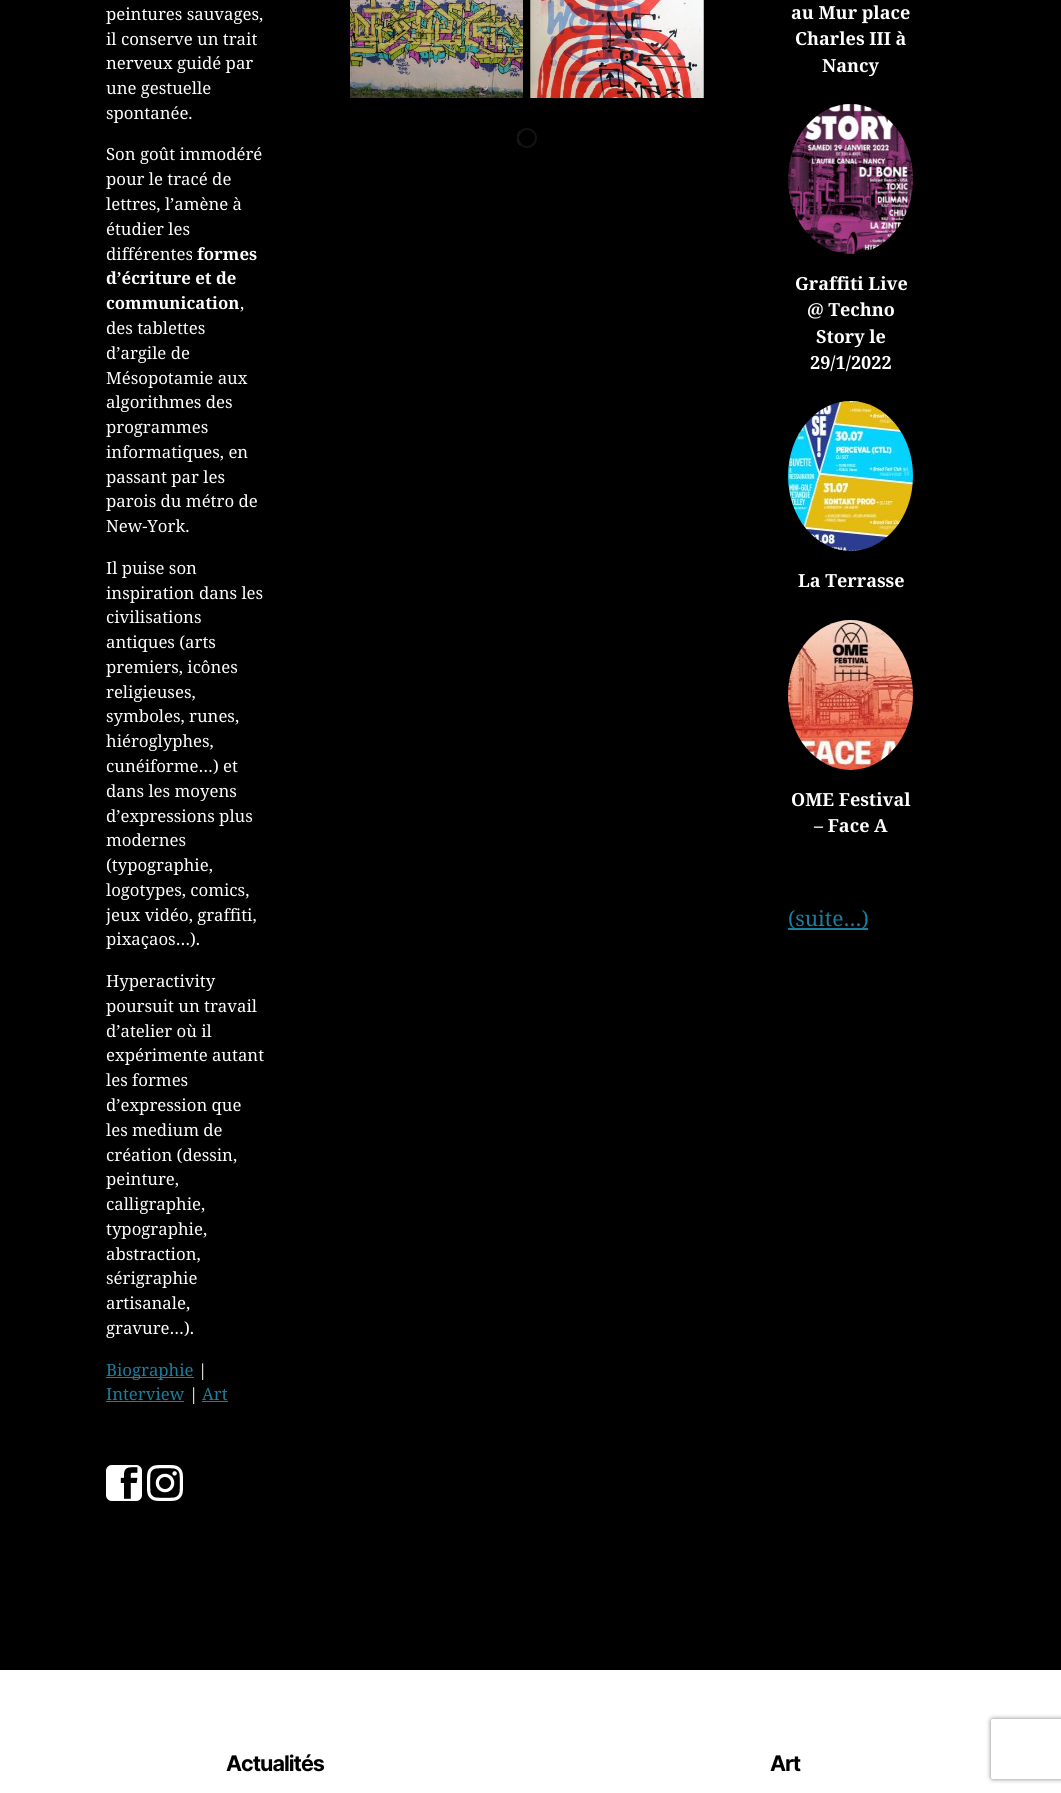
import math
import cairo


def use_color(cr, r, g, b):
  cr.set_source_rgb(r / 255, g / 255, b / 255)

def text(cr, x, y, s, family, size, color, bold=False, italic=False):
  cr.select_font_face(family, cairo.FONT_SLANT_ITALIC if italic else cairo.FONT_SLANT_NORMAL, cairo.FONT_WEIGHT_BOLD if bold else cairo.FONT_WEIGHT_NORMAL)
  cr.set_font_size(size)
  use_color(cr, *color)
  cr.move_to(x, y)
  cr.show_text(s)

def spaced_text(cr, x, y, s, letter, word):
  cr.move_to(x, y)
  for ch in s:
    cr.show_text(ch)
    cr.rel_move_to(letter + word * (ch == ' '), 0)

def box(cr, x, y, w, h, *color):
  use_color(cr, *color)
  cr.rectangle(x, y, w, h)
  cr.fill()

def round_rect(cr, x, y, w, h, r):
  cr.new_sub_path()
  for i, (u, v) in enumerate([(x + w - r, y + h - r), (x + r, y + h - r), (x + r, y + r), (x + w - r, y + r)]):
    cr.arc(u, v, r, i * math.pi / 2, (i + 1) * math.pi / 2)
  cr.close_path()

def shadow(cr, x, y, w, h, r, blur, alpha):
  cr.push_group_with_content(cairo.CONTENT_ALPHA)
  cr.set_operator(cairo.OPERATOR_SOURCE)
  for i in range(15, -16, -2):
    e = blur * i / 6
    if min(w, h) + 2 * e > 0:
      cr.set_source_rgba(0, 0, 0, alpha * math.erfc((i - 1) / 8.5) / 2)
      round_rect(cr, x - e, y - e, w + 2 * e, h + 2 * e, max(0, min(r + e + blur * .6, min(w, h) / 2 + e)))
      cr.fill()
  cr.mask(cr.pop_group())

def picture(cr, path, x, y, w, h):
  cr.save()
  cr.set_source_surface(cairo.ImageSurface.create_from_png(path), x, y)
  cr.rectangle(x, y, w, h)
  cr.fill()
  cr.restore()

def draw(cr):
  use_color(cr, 0, 0, 0)
  cr.paint()
  box(cr, 106, 1377, 88, 1, 26, 126, 156)
  box(cr, 106, 1401, 78, 1, 26, 126, 156)
  box(cr, 202, 1401, 26, 1, 26, 126, 156)
  picture(cr, "img_01.png", 106, 1465, 36, 36)
  picture(cr, "img_02.png", 147, 1465, 36, 36)
  picture(cr, "img_03.png", 350, 0, 173, 98)
  picture(cr, "img_04.png", 530, 0, 174, 98)
  cr.new_path()
  cr.move_to(520.5, 144.5)
  cr.curve_to(517, 141, 517, 135, 520.5, 131.5)
  use_color(cr, 54, 60, 65)
  cr.stroke()
  cr.arc(527, 138, 9, 0, 2 * math.pi)
  use_color(cr, 16, 18, 19)
  cr.stroke()
  picture(cr, "img_05.png", 788, 104, 125, 150)
  picture(cr, "img_06.png", 788, 401, 125, 150)
  picture(cr, "img_07.png", 788, 620, 125, 150)
  box(cr, 788, 928, 80, 2, 26, 126, 156)
  box(cr, 0, 1670, 1061, 123, 255, 255, 255)
  cr.save()
  cr.set_fill_rule(cairo.FILL_RULE_EVEN_ODD)
  cr.new_path()
  cr.move_to(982, 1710)
  cr.line_to(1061, 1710)
  cr.line_to(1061, 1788)
  cr.line_to(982, 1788)
  cr.close_path()
  cr.move_to(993, 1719)
  cr.line_to(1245, 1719)
  cr.curve_to(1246, 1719, 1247, 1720, 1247, 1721)
  cr.line_to(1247, 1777)
  cr.curve_to(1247, 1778, 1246, 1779, 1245, 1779)
  cr.line_to(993, 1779)
  cr.curve_to(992, 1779, 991, 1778, 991, 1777)
  cr.line_to(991, 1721)
  cr.curve_to(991, 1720, 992, 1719, 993, 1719)
  cr.close_path()
  cr.clip()
  use_color(cr, 128, 128, 128)
  shadow(cr, 991, 1719, 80, 60, 2, 2.5, 1)
  cr.restore()
  text(cr, 106, 20, "peintures sauvages,", "Noto Serif", 16.75, (255, 255, 255))
  text(cr, 106, 45, "il conserve un trait", "Noto Serif", 16.75, (255, 255, 255))
  text(cr, 106, 69, "nerveux guidé par", "Noto Serif", 16.75, (255, 255, 255))
  text(cr, 106, 94, "une gestuelle", "Noto Serif", 16.75, (255, 255, 255))
  text(cr, 106, 119, "spontanée.", "Noto Serif", 16.75, (255, 255, 255))
  text(cr, 106, 160, "Son goût immodéré", "Noto Serif", 16.75, (255, 255, 255))
  text(cr, 106, 185, "pour le tracé de", "Noto Serif", 16.75, (255, 255, 255))
  text(cr, 106, 210, "lettres, l’amène à", "Noto Serif", 16.75, (255, 255, 255))
  text(cr, 106, 235, "étudier les", "Noto Serif", 16.75, (255, 255, 255))
  text(cr, 106, 260, "différentes", "Noto Serif", 16.75, (255, 255, 255))
  text(cr, 197, 260, "formes", "Noto Serif", 16.75, (255, 255, 255), bold=True)
  text(cr, 106, 284, "d’écriture et de", "Noto Serif", 16.75, (255, 255, 255), bold=True)
  text(cr, 106, 309, "communication", "Noto Serif", 16.75, (255, 255, 255), bold=True)
  text(cr, 240, 309, ",", "Noto Serif", 16.75, (255, 255, 255))
  text(cr, 106, 334, "des tablettes", "Noto Serif", 16.75, (255, 255, 255))
  text(cr, 106, 359, "d’argile de", "Noto Serif", 16.75, (255, 255, 255))
  text(cr, 106, 384, "Mésopotamie aux", "Noto Serif", 16.75, (255, 255, 255))
  text(cr, 106, 408, "algorithmes des", "Noto Serif", 16.75, (255, 255, 255))
  text(cr, 106, 433, "programmes", "Noto Serif", 16.75, (255, 255, 255))
  text(cr, 106, 458, "informatiques, en", "Noto Serif", 16.75, (255, 255, 255))
  text(cr, 106, 483, "passant par les", "Noto Serif", 16.75, (255, 255, 255))
  text(cr, 106, 507, "parois du métro de", "Noto Serif", 16.75, (255, 255, 255))
  text(cr, 106, 532, "New-York.", "Noto Serif", 16.75, (255, 255, 255))
  text(cr, 106, 574, "Il puise son", "Noto Serif", 16.75, (255, 255, 255))
  text(cr, 106, 599, "inspiration", "Noto Serif", 16.75, (255, 255, 255))
  text(cr, 199, 599, "dans les", "Noto Serif", 16.75, (255, 255, 255))
  text(cr, 106, 623, "civilisations", "Noto Serif", 16.75, (255, 255, 255))
  text(cr, 106, 648, "antiques (arts", "Noto Serif", 16.75, (255, 255, 255))
  text(cr, 106, 673, "premiers, icônes", "Noto Serif", 16.75, (255, 255, 255))
  text(cr, 106, 698, "religieuses,", "Noto Serif", 16.75, (255, 255, 255))
  text(cr, 106, 722, "symboles, runes,", "Noto Serif", 16.75, (255, 255, 255))
  text(cr, 106, 747, "hiéroglyphes,", "Noto Serif", 16.75, (255, 255, 255))
  text(cr, 106, 772, "cunéiforme…) et", "Noto Serif", 16.75, (255, 255, 255))
  text(cr, 106, 797, "dans les moyens", "Noto Serif", 16.75, (255, 255, 255))
  text(cr, 106, 822, "d’expressions plus", "Noto Serif", 16.75, (255, 255, 255))
  text(cr, 106, 846, "modernes", "Noto Serif", 16.75, (255, 255, 255))
  text(cr, 106, 871, "(typographie,", "Noto Serif", 16.75, (255, 255, 255))
  text(cr, 106, 896, "logotypes, comics,", "Noto Serif", 16.75, (255, 255, 255))
  text(cr, 106, 921, "jeux vidéo, graffiti,", "Noto Serif", 16.75, (255, 255, 255))
  text(cr, 106, 945, "pixaçaos…).", "Noto Serif", 16.75, (255, 255, 255))
  text(cr, 106, 987, "Hyperactivity", "Noto Serif", 16.75, (255, 255, 255))
  text(cr, 106, 1012, "poursuit un travail", "Noto Serif", 16.75, (255, 255, 255))
  text(cr, 106, 1037, "d’atelier où il", "Noto Serif", 16.75, (255, 255, 255))
  text(cr, 106, 1061, "expérimente autant", "Noto Serif", 16.75, (255, 255, 255))
  text(cr, 106, 1086, "les formes", "Noto Serif", 16.75, (255, 255, 255))
  text(cr, 106, 1111, "d’expression que", "Noto Serif", 16.75, (255, 255, 255))
  text(cr, 106, 1136, "les medium de", "Noto Serif", 16.75, (255, 255, 255))
  text(cr, 106, 1161, "création (dessin,", "Noto Serif", 16.75, (255, 255, 255))
  text(cr, 106, 1185, "peinture,", "Noto Serif", 16.75, (255, 255, 255))
  text(cr, 106, 1210, "calligraphie,", "Noto Serif", 16.75, (255, 255, 255))
  text(cr, 106, 1235, "typographie,", "Noto Serif", 16.75, (255, 255, 255))
  text(cr, 106, 1260, "abstraction,", "Noto Serif", 16.75, (255, 255, 255))
  text(cr, 106, 1284, "sérigraphie", "Noto Serif", 16.75, (255, 255, 255))
  text(cr, 106, 1309, "artisanale,", "Noto Serif", 16.75, (255, 255, 255))
  text(cr, 106, 1334, "gravure…).", "Noto Serif", 16.75, (255, 255, 255))
  text(cr, 106, 1376, "Biographie", "Noto Serif", 16.75, (26, 126, 156))
  text(cr, 198, 1376, "|", "Noto Serif", 16.75, (255, 255, 255))
  text(cr, 106, 1400, "Interview", "Noto Serif", 16.75, (26, 126, 156))
  text(cr, 189, 1400, "|", "Noto Serif", 16.75, (255, 255, 255))
  text(cr, 202, 1400, "Art", "Noto Serif", 16.75, (26, 126, 156))
  text(cr, 791, 19, "au Mur place", "Noto Serif", 18, (255, 255, 255), bold=True)
  text(cr, 795, 45, "Charles III à", "Noto Serif", 18, (255, 255, 255), bold=True)
  text(cr, 822, 72, "Nancy", "Noto Serif", 18, (255, 255, 255), bold=True)
  text(cr, 795, 290, "Graffiti Live", "Noto Serif", 18, (255, 255, 255), bold=True)
  text(cr, 807, 316, "@ Techno", "Noto Serif", 18, (255, 255, 255), bold=True)
  text(cr, 816, 343, "Story le", "Noto Serif", 18, (255, 255, 255), bold=True)
  text(cr, 810, 369, "29/1/2022", "Noto Serif", 18, (255, 255, 255), bold=True)
  text(cr, 798, 587, "La Terrasse", "Noto Serif", 18, (255, 255, 255), bold=True)
  text(cr, 791, 806, "OME Festival", "Noto Serif", 18, (255, 255, 255), bold=True)
  text(cr, 814, 832, "– Face A", "Noto Serif", 18, (255, 255, 255), bold=True)
  text(cr, 788, 926, "(suite…)", "Noto Serif", 21, (26, 126, 156))
  cr.select_font_face("Inter", cairo.FONT_SLANT_NORMAL, cairo.FONT_WEIGHT_BOLD)
  cr.set_font_size(21.5)
  use_color(cr, 0, 0, 0)
  spaced_text(cr, 226, 1771, "Actualités", -1, 0)
  spaced_text(cr, 770, 1771, "Art", -1, 0)


surface = cairo.ImageSurface(cairo.FORMAT_RGB24, 1061, 1793)
cr = cairo.Context(surface)
options = cairo.FontOptions()
options.set_hint_metrics(cairo.HINT_METRICS_OFF)
options.set_hint_style(cairo.HINT_STYLE_NONE)
cr.set_font_options(options)
cr.set_miter_limit(4)
draw(cr)
surface.write_to_png("out.png")
